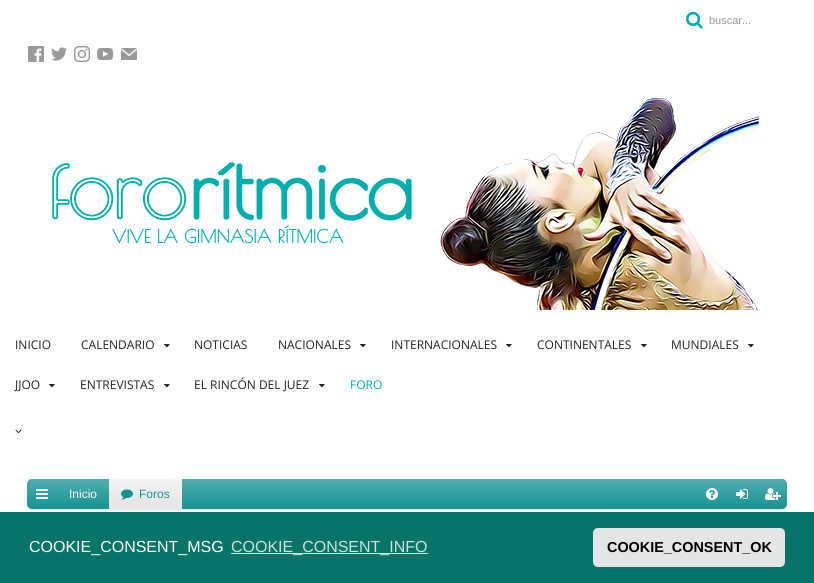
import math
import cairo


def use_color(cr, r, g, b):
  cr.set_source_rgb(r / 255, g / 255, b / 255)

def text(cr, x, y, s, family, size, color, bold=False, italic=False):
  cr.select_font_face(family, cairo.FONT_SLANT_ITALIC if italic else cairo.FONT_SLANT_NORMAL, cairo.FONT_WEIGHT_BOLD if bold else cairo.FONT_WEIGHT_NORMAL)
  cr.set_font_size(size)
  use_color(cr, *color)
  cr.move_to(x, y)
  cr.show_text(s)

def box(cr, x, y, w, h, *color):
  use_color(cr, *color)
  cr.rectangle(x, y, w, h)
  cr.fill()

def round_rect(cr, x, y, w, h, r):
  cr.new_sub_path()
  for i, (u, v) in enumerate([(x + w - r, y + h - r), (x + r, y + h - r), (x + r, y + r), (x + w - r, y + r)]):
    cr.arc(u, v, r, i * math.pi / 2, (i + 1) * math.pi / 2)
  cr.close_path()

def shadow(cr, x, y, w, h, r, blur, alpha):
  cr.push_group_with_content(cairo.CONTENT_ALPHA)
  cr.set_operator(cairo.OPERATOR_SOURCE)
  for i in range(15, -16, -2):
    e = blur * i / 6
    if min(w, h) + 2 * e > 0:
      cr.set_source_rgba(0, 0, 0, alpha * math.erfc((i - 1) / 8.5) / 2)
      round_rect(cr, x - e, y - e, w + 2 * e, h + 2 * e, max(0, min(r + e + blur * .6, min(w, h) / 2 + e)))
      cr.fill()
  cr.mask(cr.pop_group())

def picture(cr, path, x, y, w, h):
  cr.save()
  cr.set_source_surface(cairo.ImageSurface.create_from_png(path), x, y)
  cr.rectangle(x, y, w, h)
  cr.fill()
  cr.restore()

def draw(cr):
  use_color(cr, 255, 255, 255)
  cr.paint()
  picture(cr, "img_01.png", 686, 11, 17, 18)
  picture(cr, "img_02.png", 28, 46, 16, 16)
  picture(cr, "img_03.png", 51, 47, 16, 14)
  picture(cr, "img_04.png", 74, 46, 16, 16)
  picture(cr, "img_05.png", 97, 48, 16, 12)
  picture(cr, "img_06.png", 121, 48, 16, 12)
  picture(cr, "img_07.png", 52, 98, 707, 212)
  picture(cr, "img_08.png", 164, 344, 6, 4)
  picture(cr, "img_08.png", 360, 344, 6, 4)
  picture(cr, "img_08.png", 506, 344, 6, 4)
  picture(cr, "img_08.png", 641, 344, 6, 4)
  picture(cr, "img_08.png", 748, 344, 6, 4)
  picture(cr, "img_08.png", 49, 384, 6, 4)
  picture(cr, "img_08.png", 164, 384, 6, 4)
  picture(cr, "img_08.png", 319, 384, 6, 4)
  picture(cr, "img_09.png", 15, 429, 7, 5)
  use_color(cr, 0, 0, 0)
  shadow(cr, 32, 489, 750, 20, 0, 2.5, 0.2)
  use_color(cr, 23, 146, 147)
  round_rect(cr, 27, 479, 760, 30, 5)
  cr.fill()
  gradient = cairo.LinearGradient(407, 479, 407, 509)
  gradient.add_color_stop_rgba(0, 1, 1, 1, 0.25)
  gradient.add_color_stop_rgba(1, 1, 1, 1, 0)
  cr.set_source(gradient)
  round_rect(cr, 27, 479, 760, 30, 5)
  cr.fill()
  picture(cr, "img_10.png", 36, 489, 12, 10)
  gradient = cairo.LinearGradient(146, 479, 146, 509)
  gradient.add_color_stop_rgba(0, 0.949, 0.949, 0.949, 1)
  gradient.add_color_stop_rgba(1, 0.894, 0.894, 0.894, 1)
  cr.set_source(gradient)
  cr.rectangle(109, 479, 73, 30)
  cr.fill()
  picture(cr, "img_11.png", 121, 489, 12, 11)
  picture(cr, "img_12.png", 706, 488, 12, 12)
  picture(cr, "img_13.png", 736, 489, 12, 10)
  picture(cr, "img_14.png", 765, 488, 16, 12)
  box(cr, 0, 512, 814, 71, 7, 116, 103)
  box(cr, 231, 553, 197, 1, 205, 227, 225)
  use_color(cr, 229, 229, 229)
  round_rect(cr, 593, 528, 192, 39, 5)
  cr.fill()
  text(cr, 709, 24, "buscar...", "Liberation Sans", 11, (153, 153, 153))
  text(cr, 112, 243, "VIVE LA GIMNASIA RÍTMICA", "Poiret One", 18, (0, 175, 172), bold=True)
  text(cr, 15, 349, "INICIO", "Open Sans", 12, (34, 34, 34))
  text(cr, 81, 349, "CALENDARIO", "Open Sans", 12, (34, 34, 34))
  text(cr, 194, 349, "NOTICIAS", "Open Sans", 12, (34, 34, 34))
  text(cr, 278, 349, "NACIONALES", "Open Sans", 12, (34, 34, 34))
  text(cr, 391, 349, "INTERNACIONALES", "Open Sans", 12, (34, 34, 34))
  text(cr, 537, 349, "CONTINENTALES", "Open Sans", 12, (34, 34, 34))
  text(cr, 671, 349, "MUNDIALES", "Open Sans", 12, (34, 34, 34))
  text(cr, 15, 389, "JJOO", "Open Sans", 12, (34, 34, 34))
  text(cr, 80, 389, "ENTREVISTAS", "Open Sans", 12, (34, 34, 34))
  text(cr, 194, 389, "EL RINCÓN DEL JUEZ", "Open Sans", 12, (34, 34, 34))
  text(cr, 350, 389, "FORO", "Open Sans", 12, (0, 175, 172))
  text(cr, 69, 498, "Inicio", "Liberation Sans", 12, (255, 255, 255))
  text(cr, 139, 498, "Foros", "Liberation Sans", 12, (23, 146, 147))
  text(cr, 29, 552, "COOKIE_CONSENT_MSG", "Liberation Sans", 16, (255, 255, 255))
  text(cr, 231, 552, "COOKIE_CONSENT_INFO", "Liberation Sans", 16, (205, 227, 225))
  text(cr, 607, 552, "COOKIE_CONSENT_OK", "Liberation Sans", 14.4, (0, 0, 0), bold=True)


surface = cairo.ImageSurface(cairo.FORMAT_RGB24, 814, 583)
cr = cairo.Context(surface)
options = cairo.FontOptions()
options.set_hint_metrics(cairo.HINT_METRICS_OFF)
options.set_hint_style(cairo.HINT_STYLE_NONE)
cr.set_font_options(options)
cr.set_miter_limit(4)
draw(cr)
surface.write_to_png("out.png")
